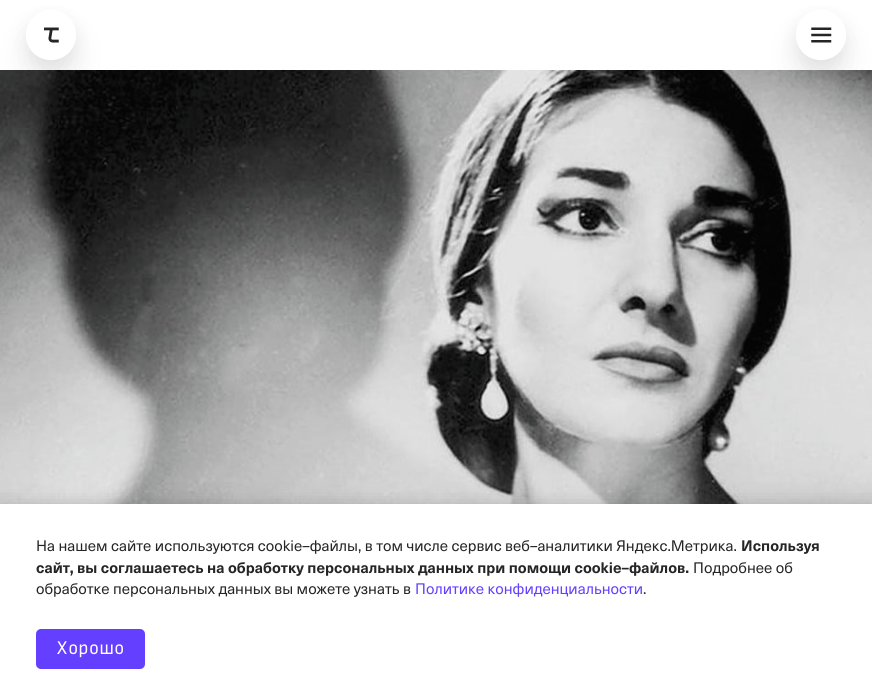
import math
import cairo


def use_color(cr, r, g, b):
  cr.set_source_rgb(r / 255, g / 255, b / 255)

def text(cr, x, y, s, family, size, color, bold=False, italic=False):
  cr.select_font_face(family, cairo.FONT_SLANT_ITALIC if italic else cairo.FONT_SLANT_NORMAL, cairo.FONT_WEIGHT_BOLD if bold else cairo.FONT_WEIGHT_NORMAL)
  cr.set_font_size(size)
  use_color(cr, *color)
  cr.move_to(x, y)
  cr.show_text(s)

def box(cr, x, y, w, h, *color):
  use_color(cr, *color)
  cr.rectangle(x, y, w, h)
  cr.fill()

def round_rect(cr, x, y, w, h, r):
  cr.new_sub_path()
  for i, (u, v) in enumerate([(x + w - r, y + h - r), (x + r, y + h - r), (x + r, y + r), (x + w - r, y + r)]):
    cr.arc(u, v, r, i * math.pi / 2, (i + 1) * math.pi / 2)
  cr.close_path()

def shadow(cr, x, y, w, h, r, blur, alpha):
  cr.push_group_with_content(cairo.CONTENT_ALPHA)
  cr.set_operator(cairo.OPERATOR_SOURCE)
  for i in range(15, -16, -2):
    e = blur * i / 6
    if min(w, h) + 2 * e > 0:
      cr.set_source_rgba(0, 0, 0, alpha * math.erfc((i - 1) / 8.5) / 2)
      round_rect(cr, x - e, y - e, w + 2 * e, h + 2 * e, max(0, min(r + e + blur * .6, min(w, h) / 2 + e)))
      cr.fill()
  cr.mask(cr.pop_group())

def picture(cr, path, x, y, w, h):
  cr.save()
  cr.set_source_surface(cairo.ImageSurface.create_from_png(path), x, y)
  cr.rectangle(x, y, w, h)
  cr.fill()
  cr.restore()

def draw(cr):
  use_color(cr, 255, 255, 255)
  cr.paint()
  cr.save()
  cr.set_fill_rule(cairo.FILL_RULE_EVEN_ODD)
  cr.new_path()
  cr.move_to(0, 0)
  cr.line_to(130, 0)
  cr.line_to(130, 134)
  cr.line_to(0, 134)
  cr.close_path()
  cr.move_to(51, 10)
  cr.curve_to(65, 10, 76, 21, 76, 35)
  cr.curve_to(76, 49, 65, 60, 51, 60)
  cr.curve_to(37, 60, 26, 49, 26, 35)
  cr.curve_to(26, 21, 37, 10, 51, 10)
  cr.close_path()
  cr.clip()
  use_color(cr, 0, 0, 0)
  shadow(cr, 26, 30, 50, 50, 25, 17.5, 0.07)
  cr.restore()
  cr.save()
  cr.set_fill_rule(cairo.FILL_RULE_EVEN_ODD)
  cr.new_path()
  cr.move_to(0, 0)
  cr.line_to(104, 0)
  cr.line_to(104, 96)
  cr.line_to(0, 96)
  cr.close_path()
  cr.move_to(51, 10)
  cr.curve_to(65, 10, 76, 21, 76, 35)
  cr.curve_to(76, 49, 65, 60, 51, 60)
  cr.curve_to(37, 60, 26, 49, 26, 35)
  cr.curve_to(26, 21, 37, 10, 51, 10)
  cr.close_path()
  cr.clip()
  use_color(cr, 0, 0, 0)
  shadow(cr, 26, 18, 50, 50, 25, 9, 0.06)
  cr.restore()
  picture(cr, "img_01.png", 44, 27, 15, 16)
  cr.save()
  cr.set_fill_rule(cairo.FILL_RULE_EVEN_ODD)
  cr.new_path()
  cr.move_to(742, 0)
  cr.line_to(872, 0)
  cr.line_to(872, 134)
  cr.line_to(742, 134)
  cr.close_path()
  cr.move_to(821, 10)
  cr.curve_to(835, 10, 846, 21, 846, 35)
  cr.curve_to(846, 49, 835, 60, 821, 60)
  cr.curve_to(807, 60, 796, 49, 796, 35)
  cr.curve_to(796, 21, 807, 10, 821, 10)
  cr.close_path()
  cr.clip()
  use_color(cr, 0, 0, 0)
  shadow(cr, 796, 30, 50, 50, 25, 17.5, 0.07)
  cr.restore()
  cr.save()
  cr.set_fill_rule(cairo.FILL_RULE_EVEN_ODD)
  cr.new_path()
  cr.move_to(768, 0)
  cr.line_to(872, 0)
  cr.line_to(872, 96)
  cr.line_to(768, 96)
  cr.close_path()
  cr.move_to(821, 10)
  cr.curve_to(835, 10, 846, 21, 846, 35)
  cr.curve_to(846, 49, 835, 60, 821, 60)
  cr.curve_to(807, 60, 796, 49, 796, 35)
  cr.curve_to(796, 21, 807, 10, 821, 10)
  cr.close_path()
  cr.clip()
  use_color(cr, 0, 0, 0)
  shadow(cr, 796, 18, 50, 50, 25, 9, 0.06)
  cr.restore()
  picture(cr, "img_02.png", 811, 27, 21, 16)
  picture(cr, "img_03.png", 0, 70, 872, 434)
  use_color(cr, 0, 0, 0)
  shadow(cr, 0, 504, 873, 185, 0, 10, 0.2)
  box(cr, 0, 504, 872, 184, 255, 255, 255)
  use_color(cr, 100, 63, 255)
  round_rect(cr, 36, 629, 109, 40, 5)
  cr.fill()
  text(cr, 36, 551, "На нашем сайте используются cookie–файлы, в том числе сервис веб–аналитики Яндекс.Метрика.", "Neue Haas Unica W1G", 15, (37, 37, 37))
  text(cr, 741, 551, "Используя", "Neue Haas Unica W1G", 15, (37, 37, 37), bold=True)
  text(cr, 36, 573, "сайт, вы соглашаетесь на обработку персональных данных при помощи cookie–файлов.", "Neue Haas Unica W1G", 15, (37, 37, 37), bold=True)
  text(cr, 693, 573, "Подробнее об", "Neue Haas Unica W1G", 15, (37, 37, 37))
  text(cr, 36, 594, "обработке персональных данных вы можете узнать в", "Neue Haas Unica W1G", 15, (37, 37, 37))
  text(cr, 415, 594, "Политике конфиденциальности", "Neue Haas Unica W1G", 15, (100, 63, 255))
  text(cr, 643, 594, ".", "Neue Haas Unica W1G", 15, (37, 37, 37))
  text(cr, 56, 654, "Хорошо", "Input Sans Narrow", 17.5, (255, 255, 255))


surface = cairo.ImageSurface(cairo.FORMAT_RGB24, 872, 688)
cr = cairo.Context(surface)
options = cairo.FontOptions()
options.set_hint_metrics(cairo.HINT_METRICS_OFF)
options.set_hint_style(cairo.HINT_STYLE_NONE)
cr.set_font_options(options)
cr.set_miter_limit(4)
draw(cr)
surface.write_to_png("out.png")
